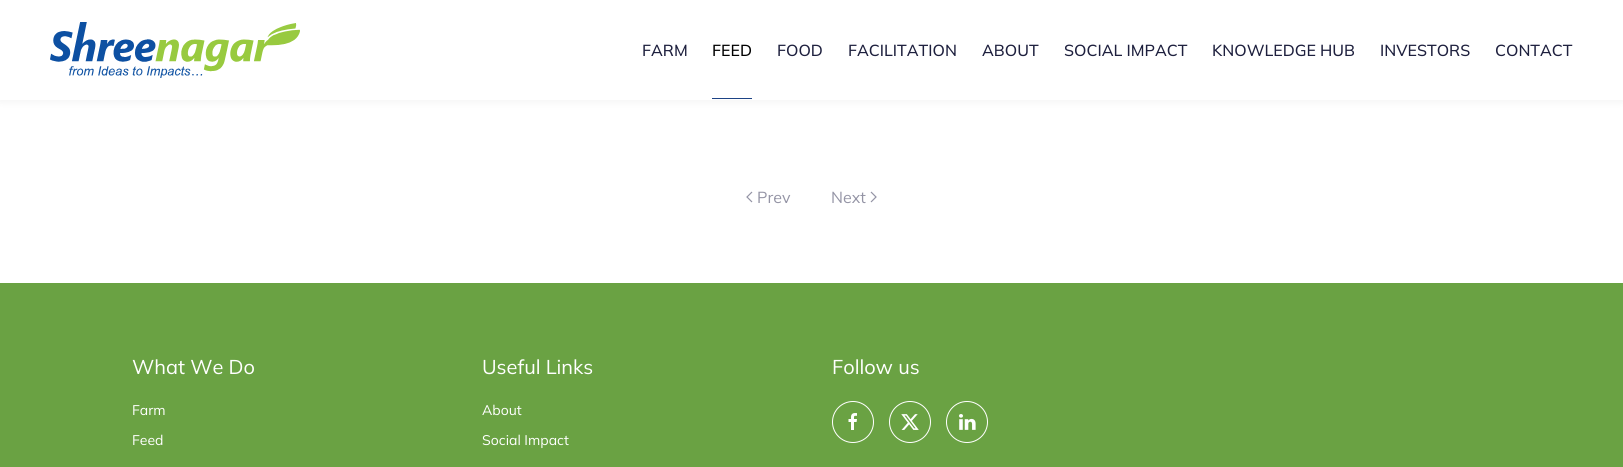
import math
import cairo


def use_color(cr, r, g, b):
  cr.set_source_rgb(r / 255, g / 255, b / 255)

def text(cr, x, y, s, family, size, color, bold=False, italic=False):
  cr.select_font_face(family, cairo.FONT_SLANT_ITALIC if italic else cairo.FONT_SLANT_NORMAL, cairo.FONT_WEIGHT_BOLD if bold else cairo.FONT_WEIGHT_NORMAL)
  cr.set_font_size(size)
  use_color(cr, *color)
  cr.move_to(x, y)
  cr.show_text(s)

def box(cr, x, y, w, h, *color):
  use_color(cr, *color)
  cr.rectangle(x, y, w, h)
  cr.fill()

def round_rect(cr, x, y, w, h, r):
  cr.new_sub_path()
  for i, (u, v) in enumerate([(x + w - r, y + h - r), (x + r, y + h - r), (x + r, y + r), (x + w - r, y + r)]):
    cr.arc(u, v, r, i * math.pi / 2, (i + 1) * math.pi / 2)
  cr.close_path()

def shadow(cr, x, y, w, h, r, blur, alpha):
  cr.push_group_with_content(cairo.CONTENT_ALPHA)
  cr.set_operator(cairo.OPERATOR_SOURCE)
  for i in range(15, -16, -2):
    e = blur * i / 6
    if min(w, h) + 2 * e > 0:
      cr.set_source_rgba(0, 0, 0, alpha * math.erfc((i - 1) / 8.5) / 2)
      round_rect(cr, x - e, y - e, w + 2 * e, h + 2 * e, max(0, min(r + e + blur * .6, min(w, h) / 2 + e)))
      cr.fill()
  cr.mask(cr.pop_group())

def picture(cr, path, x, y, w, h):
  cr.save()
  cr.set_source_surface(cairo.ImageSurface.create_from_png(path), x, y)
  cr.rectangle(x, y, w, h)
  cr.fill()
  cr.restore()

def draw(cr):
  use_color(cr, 255, 255, 255)
  cr.paint()
  use_color(cr, 0, 0, 0)
  shadow(cr, 0, 0, 1623, 100, 0, 5, 0.07)
  box(cr, 0, 0, 1623, 100, 255, 255, 255)
  picture(cr, "img_01.png", 50, 22, 250, 56)
  box(cr, 712, 98, 40, 1, 29, 67, 133)
  cr.new_path()
  cr.move_to(752, 192)
  cr.line_to(747, 197)
  cr.line_to(752, 202)
  use_color(cr, 148, 148, 165)
  cr.set_line_width(1.2)
  cr.stroke()
  cr.new_path()
  cr.move_to(871, 192)
  cr.line_to(876, 197)
  cr.line_to(871, 202)
  cr.stroke()
  box(cr, 0, 283, 1623, 184, 106, 162, 67)
  cr.arc(853, 422, 20.5, 0, 2 * math.pi)
  use_color(cr, 255, 255, 255)
  cr.set_line_width(1)
  cr.stroke()
  picture(cr, "img_02.png", 848, 413, 9, 17)
  cr.arc(910, 422, 20.5, 0, 2 * math.pi)
  cr.stroke()
  picture(cr, "img_03.png", 901, 414, 18, 16)
  cr.arc(967, 422, 20.5, 0, 2 * math.pi)
  cr.stroke()
  picture(cr, "img_04.png", 959, 414, 17, 16)
  text(cr, 642, 56, "FARM", "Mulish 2 ExtraLight", 16, (30, 32, 62))
  text(cr, 712, 56, "FEED", "Mulish 2 ExtraLight", 16, (0, 0, 0))
  text(cr, 777, 56, "FOOD", "Mulish 2 ExtraLight", 16, (30, 32, 62))
  text(cr, 848, 56, "FACILITATION", "Mulish 2 ExtraLight", 16, (30, 32, 62))
  text(cr, 982, 56, "ABOUT", "Mulish 2 ExtraLight", 16, (30, 32, 62))
  text(cr, 1064, 56, "SOCIAL IMPACT", "Mulish 2 ExtraLight", 16, (30, 32, 62))
  text(cr, 1212, 56, "KNOWLEDGE HUB", "Mulish 2 ExtraLight", 16, (30, 32, 62))
  text(cr, 1380, 56, "INVESTORS", "Mulish 2 ExtraLight", 16, (30, 32, 62))
  text(cr, 1495, 56, "CONTACT", "Mulish 2 ExtraLight", 16, (30, 32, 62))
  text(cr, 757, 203, "Prev", "Mulish ExtraLight", 16, (148, 148, 165))
  text(cr, 831, 203, "Next", "Mulish ExtraLight", 16, (148, 148, 165))
  text(cr, 132, 374, "What We Do", "Mulish ExtraLight", 20, (255, 255, 255))
  text(cr, 132, 415, "Farm", "Mulish ExtraLight", 14, (255, 255, 255))
  text(cr, 132, 445, "Feed", "Mulish ExtraLight", 14, (255, 255, 255))
  text(cr, 482, 374, "Useful Links", "Mulish ExtraLight", 20, (255, 255, 255))
  text(cr, 482, 415, "About", "Mulish ExtraLight", 14, (255, 255, 255))
  text(cr, 482, 445, "Social Impact", "Mulish ExtraLight", 14, (255, 255, 255))
  text(cr, 832, 374, "Follow us", "Mulish ExtraLight", 20, (255, 255, 255))


surface = cairo.ImageSurface(cairo.FORMAT_RGB24, 1623, 467)
cr = cairo.Context(surface)
options = cairo.FontOptions()
options.set_hint_metrics(cairo.HINT_METRICS_OFF)
options.set_hint_style(cairo.HINT_STYLE_NONE)
cr.set_font_options(options)
cr.set_miter_limit(4)
draw(cr)
surface.write_to_png("out.png")
